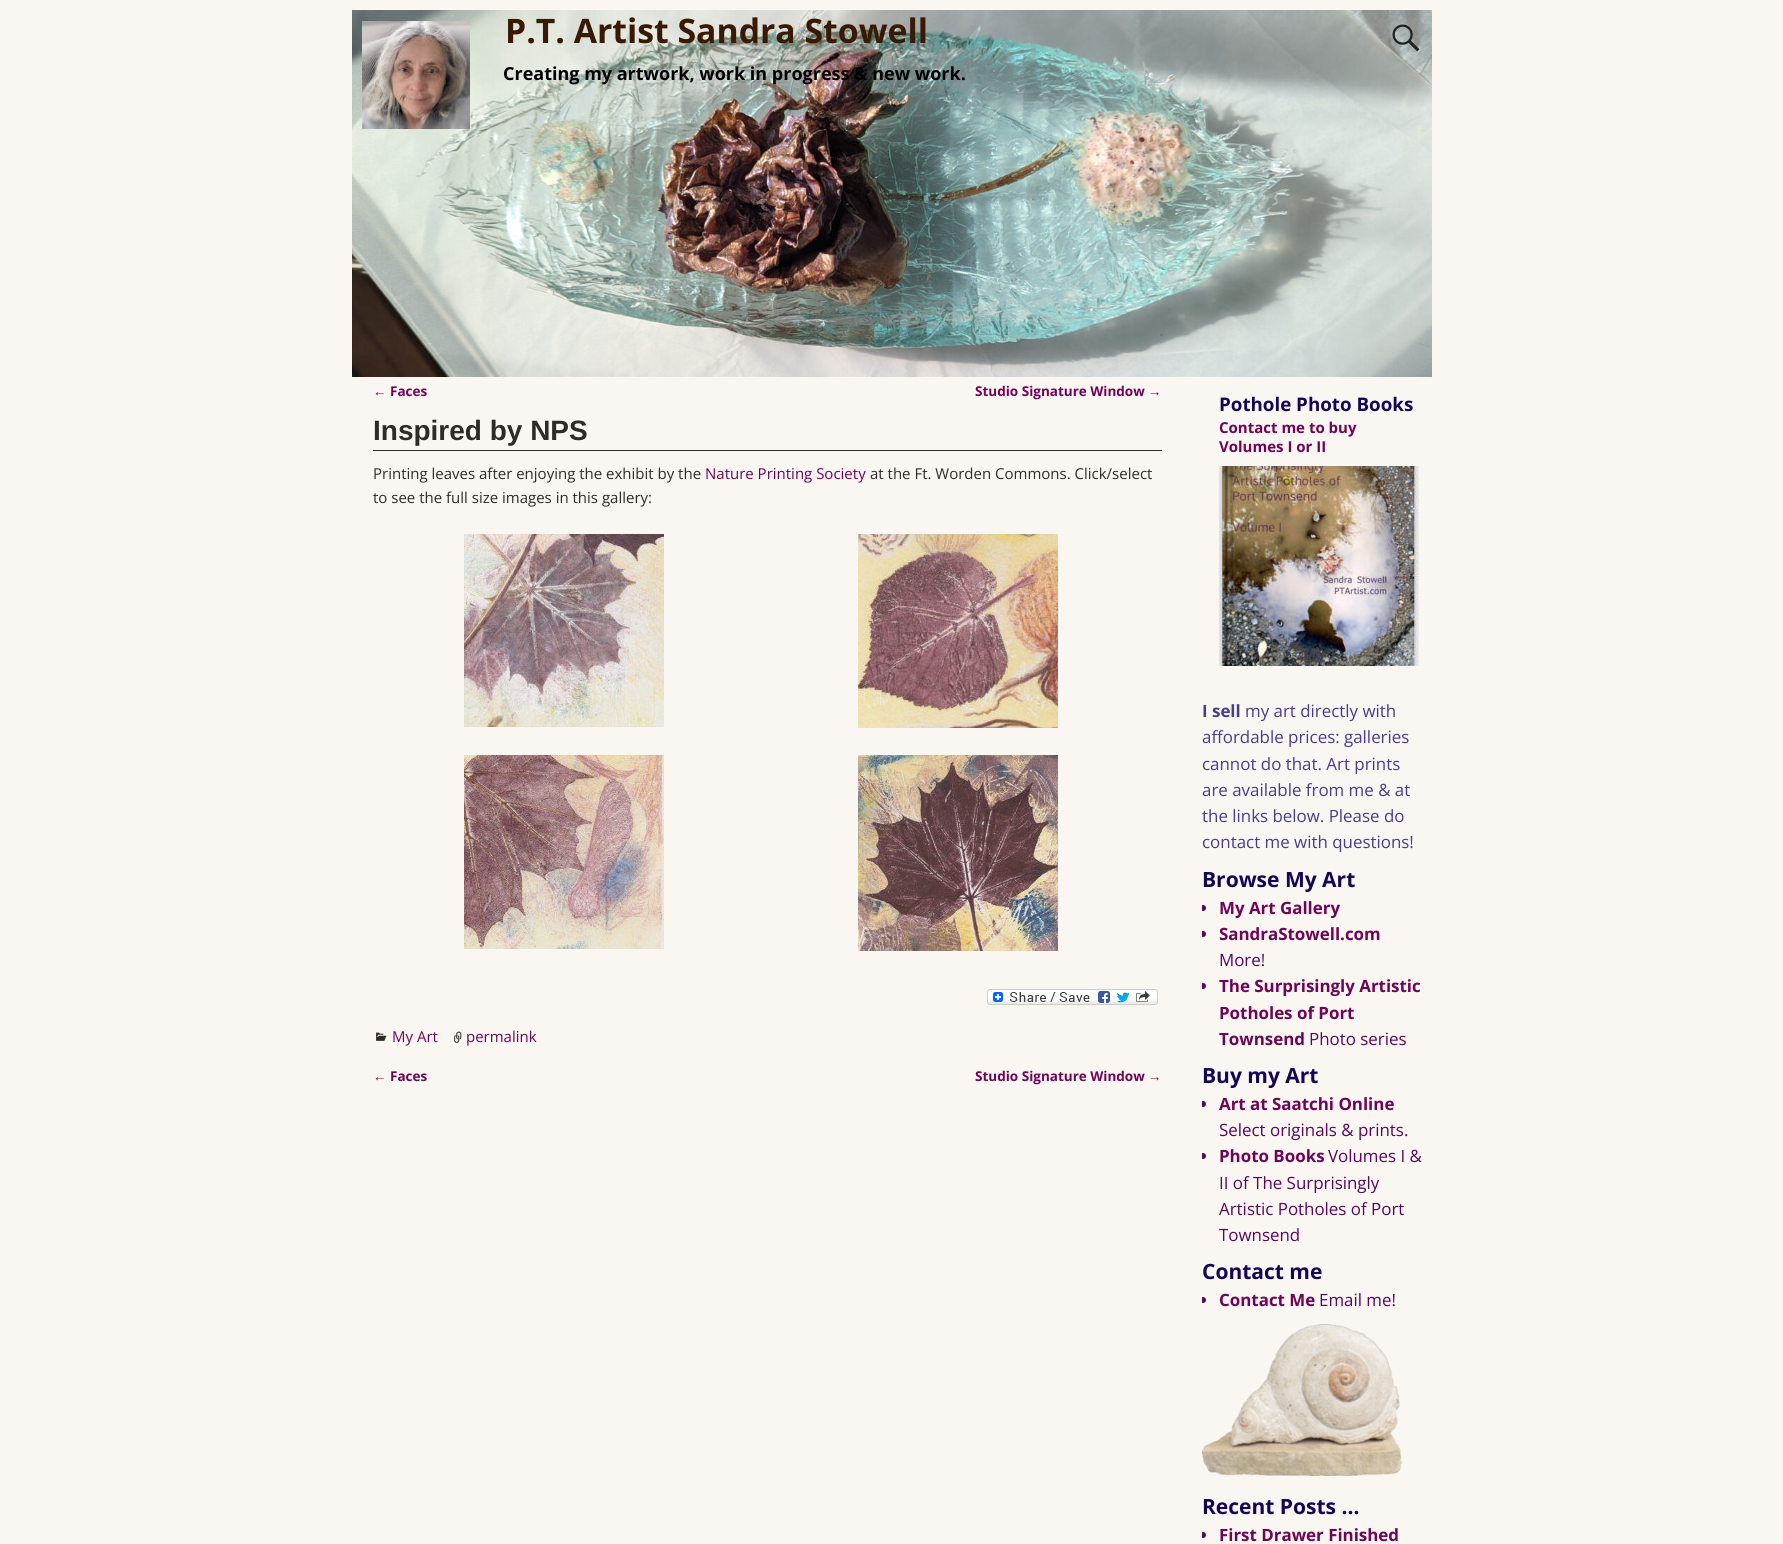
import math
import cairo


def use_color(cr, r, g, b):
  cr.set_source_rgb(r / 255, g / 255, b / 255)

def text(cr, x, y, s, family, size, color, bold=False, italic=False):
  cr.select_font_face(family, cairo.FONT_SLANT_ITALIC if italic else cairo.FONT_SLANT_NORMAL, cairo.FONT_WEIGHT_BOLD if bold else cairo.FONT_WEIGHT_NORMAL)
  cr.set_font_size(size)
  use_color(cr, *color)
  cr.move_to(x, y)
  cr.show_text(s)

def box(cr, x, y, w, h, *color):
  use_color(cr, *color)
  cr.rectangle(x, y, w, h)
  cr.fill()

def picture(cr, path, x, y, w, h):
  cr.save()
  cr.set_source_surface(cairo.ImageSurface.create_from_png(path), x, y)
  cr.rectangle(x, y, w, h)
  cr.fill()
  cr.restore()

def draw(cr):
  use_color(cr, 250, 247, 243)
  cr.paint()
  picture(cr, "img_01.png", 352, 10, 1080, 367)
  picture(cr, "img_02.png", 362, 21, 108, 108)
  picture(cr, "img_03.png", 1392, 24, 28, 28)
  box(cr, 373, 450, 789, 1, 46, 44, 41)
  picture(cr, "img_04.png", 464, 534, 200, 193)
  picture(cr, "img_05.png", 858, 534, 200, 194)
  picture(cr, "img_06.png", 464, 755, 200, 194)
  picture(cr, "img_07.png", 858, 755, 200, 196)
  picture(cr, "img_08.png", 987, 989, 171, 16)
  picture(cr, "img_09.png", 376, 1032, 11, 9)
  picture(cr, "img_10.png", 454, 1031, 8, 12)
  picture(cr, "img_11.png", 1219, 466, 200, 200)
  cr.save()
  cr.rectangle(1202, 861, 222, 196)
  cr.clip()
  use_color(cr, 89, 6, 92)
  cr.arc(1203, 908, 3, 0, 2 * math.pi)
  cr.fill()
  cr.arc(1203, 934, 3, 0, 2 * math.pi)
  cr.fill()
  cr.arc(1203, 986, 3, 0, 2 * math.pi)
  cr.fill()
  cr.restore()
  cr.save()
  cr.rectangle(1202, 1057, 222, 196)
  cr.clip()
  use_color(cr, 89, 6, 92)
  cr.arc(1203, 1104, 3, 0, 2 * math.pi)
  cr.fill()
  cr.arc(1203, 1156, 3, 0, 2 * math.pi)
  cr.fill()
  cr.restore()
  cr.save()
  cr.rectangle(1202, 1253, 222, 66)
  cr.clip()
  use_color(cr, 89, 6, 92)
  cr.arc(1203, 1300, 3, 0, 2 * math.pi)
  cr.fill()
  cr.restore()
  picture(cr, "img_12.png", 1202, 1324, 200, 152)
  cr.save()
  cr.rectangle(1202, 1488, 222, 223)
  cr.clip()
  use_color(cr, 89, 6, 92)
  cr.arc(1203, 1535, 3, 0, 2 * math.pi)
  cr.fill()
  cr.restore()
  text(cr, 505, 43, "P.T. Artist Sandra Stowell", "Open Sans", 33.75, (56, 25, 4), bold=True)
  text(cr, 503, 80, "Creating my artwork, work in progress & new work.", "Open Sans", 18, (0, 0, 0), bold=True)
  text(cr, 373, 396, "←", "Liberation Sans", 13.5, (112, 3, 87))
  text(cr, 390, 396, "Faces", "Open Sans", 13.5, (112, 3, 87), bold=True)
  text(cr, 975, 396, "Studio Signature Window", "Open Sans", 13.5, (112, 3, 87), bold=True)
  text(cr, 1148, 396, "→", "Liberation Sans", 13.5, (112, 3, 87))
  text(cr, 373, 440, "Inspired by NPS", "Liberation Sans", 28, (46, 44, 41), bold=True)
  text(cr, 373, 479, "Printing leaves after enjoying the exhibit by the", "Open Sans", 15, (46, 44, 41))
  text(cr, 705, 479, "Nature Printing Society", "Open Sans", 15, (112, 3, 87))
  text(cr, 870, 479, "at the Ft. Worden Commons. Click/select", "Open Sans", 15, (46, 44, 41))
  text(cr, 373, 503, "to see the full size images in this gallery:", "Open Sans", 15, (46, 44, 41))
  text(cr, 392, 1042, "My Art", "Open Sans", 15, (112, 3, 87))
  text(cr, 466, 1042, "permalink", "Open Sans", 15, (112, 3, 87))
  text(cr, 373, 1081, "←", "Liberation Sans", 13.5, (112, 3, 87))
  text(cr, 390, 1081, "Faces", "Open Sans", 13.5, (112, 3, 87), bold=True)
  text(cr, 975, 1081, "Studio Signature Window", "Open Sans", 13.5, (112, 3, 87), bold=True)
  text(cr, 1148, 1081, "→", "Liberation Sans", 13.5, (112, 3, 87))
  text(cr, 1219, 411, "Pothole Photo Books", "Open Sans", 18.75, (20, 6, 87), bold=True)
  text(cr, 1219, 433, "Contact me to buy", "Open Sans", 15, (112, 3, 87), bold=True)
  text(cr, 1219, 452, "Volumes I or II", "Open Sans", 15, (112, 3, 87), bold=True)
  text(cr, 1202, 717, "I sell", "Open Sans", 16.9, (72, 61, 139), bold=True)
  text(cr, 1245, 717, "my art directly with", "Open Sans", 16.9, (72, 61, 139))
  text(cr, 1202, 743, "affordable prices: galleries", "Open Sans", 16.9, (72, 61, 139))
  text(cr, 1202, 770, "cannot do that. Art prints", "Open Sans", 16.9, (72, 61, 139))
  text(cr, 1202, 796, "are available from me & at", "Open Sans", 16.9, (72, 61, 139))
  text(cr, 1202, 822, "the links below. Please do", "Open Sans", 16.9, (72, 61, 139))
  text(cr, 1202, 848, "contact me with questions!", "Open Sans", 16.9, (72, 61, 139))
  text(cr, 1202, 887, "Browse My Art", "Open Sans", 21, (20, 6, 87), bold=True)
  text(cr, 1219, 914, "My Art Gallery", "Open Sans", 16.9, (112, 3, 87), bold=True)
  text(cr, 1219, 940, "SandraStowell.com", "Open Sans", 16.9, (112, 3, 87), bold=True)
  text(cr, 1219, 966, "More!", "Open Sans", 16.9, (89, 6, 92))
  text(cr, 1219, 992, "The Surprisingly Artistic", "Open Sans", 16.9, (112, 3, 87), bold=True)
  text(cr, 1219, 1019, "Potholes of Port", "Open Sans", 16.9, (112, 3, 87), bold=True)
  text(cr, 1219, 1045, "Townsend", "Open Sans", 16.9, (112, 3, 87), bold=True)
  text(cr, 1309, 1045, "Photo series", "Open Sans", 16.9, (89, 6, 92))
  text(cr, 1202, 1083, "Buy my Art", "Open Sans", 21, (20, 6, 87), bold=True)
  text(cr, 1219, 1110, "Art at Saatchi Online", "Open Sans", 16.9, (112, 3, 87), bold=True)
  text(cr, 1219, 1136, "Select originals & prints.", "Open Sans", 16.9, (89, 6, 92))
  text(cr, 1219, 1162, "Photo Books", "Open Sans", 16.9, (112, 3, 87), bold=True)
  text(cr, 1328, 1162, "Volumes I &", "Open Sans", 16.9, (89, 6, 92))
  text(cr, 1219, 1189, "II of The Surprisingly", "Open Sans", 16.9, (89, 6, 92))
  text(cr, 1219, 1215, "Artistic Potholes of Port", "Open Sans", 16.9, (89, 6, 92))
  text(cr, 1219, 1241, "Townsend", "Open Sans", 16.9, (89, 6, 92))
  text(cr, 1202, 1279, "Contact me", "Open Sans", 21, (20, 6, 87), bold=True)
  text(cr, 1219, 1306, "Contact Me", "Open Sans", 16.9, (112, 3, 87), bold=True)
  text(cr, 1319, 1306, "Email me!", "Open Sans", 16.9, (89, 6, 92))
  text(cr, 1202, 1514, "Recent Posts …", "Open Sans", 21, (20, 6, 87), bold=True)
  text(cr, 1219, 1541, "First Drawer Finished", "Open Sans", 16.9, (112, 3, 87), bold=True)


surface = cairo.ImageSurface(cairo.FORMAT_RGB24, 1783, 1544)
cr = cairo.Context(surface)
options = cairo.FontOptions()
options.set_hint_metrics(cairo.HINT_METRICS_OFF)
options.set_hint_style(cairo.HINT_STYLE_NONE)
cr.set_font_options(options)
cr.set_miter_limit(4)
draw(cr)
surface.write_to_png("out.png")
